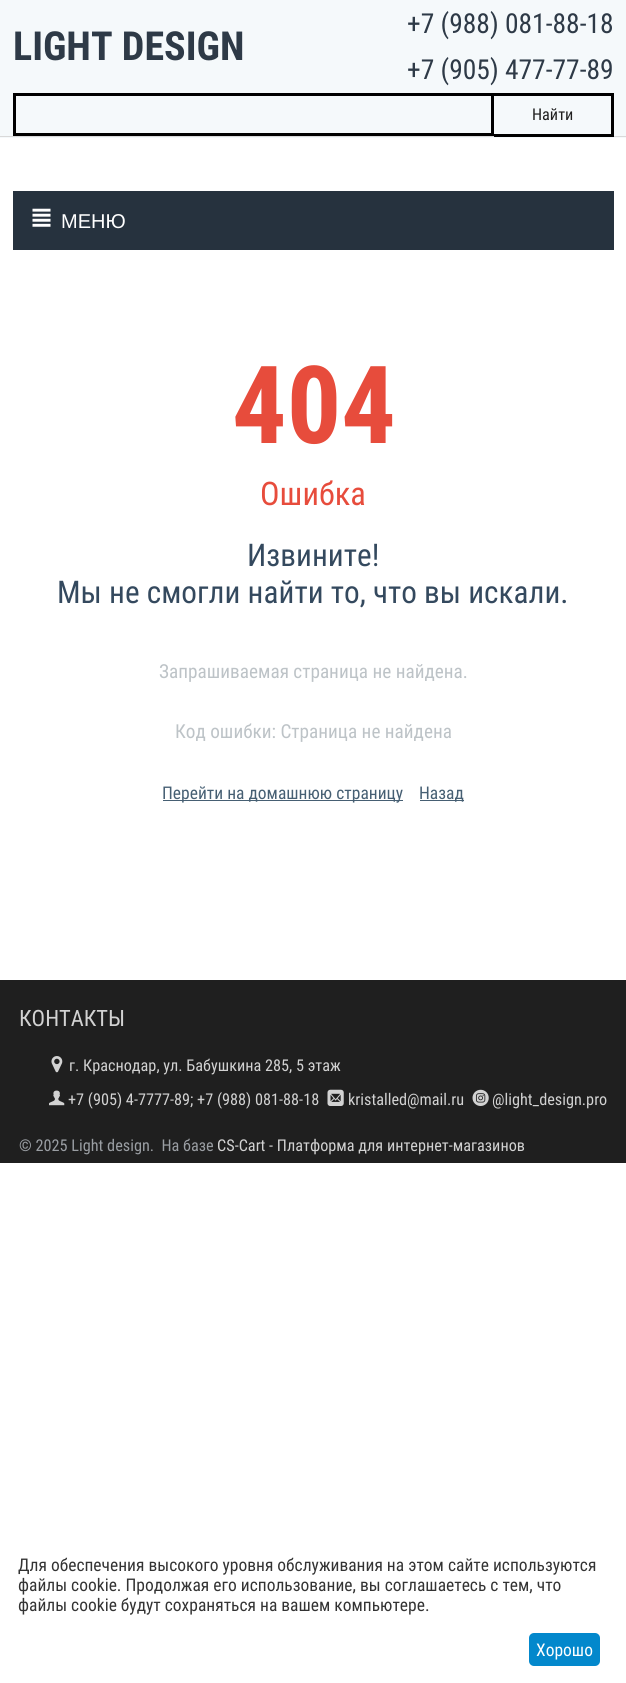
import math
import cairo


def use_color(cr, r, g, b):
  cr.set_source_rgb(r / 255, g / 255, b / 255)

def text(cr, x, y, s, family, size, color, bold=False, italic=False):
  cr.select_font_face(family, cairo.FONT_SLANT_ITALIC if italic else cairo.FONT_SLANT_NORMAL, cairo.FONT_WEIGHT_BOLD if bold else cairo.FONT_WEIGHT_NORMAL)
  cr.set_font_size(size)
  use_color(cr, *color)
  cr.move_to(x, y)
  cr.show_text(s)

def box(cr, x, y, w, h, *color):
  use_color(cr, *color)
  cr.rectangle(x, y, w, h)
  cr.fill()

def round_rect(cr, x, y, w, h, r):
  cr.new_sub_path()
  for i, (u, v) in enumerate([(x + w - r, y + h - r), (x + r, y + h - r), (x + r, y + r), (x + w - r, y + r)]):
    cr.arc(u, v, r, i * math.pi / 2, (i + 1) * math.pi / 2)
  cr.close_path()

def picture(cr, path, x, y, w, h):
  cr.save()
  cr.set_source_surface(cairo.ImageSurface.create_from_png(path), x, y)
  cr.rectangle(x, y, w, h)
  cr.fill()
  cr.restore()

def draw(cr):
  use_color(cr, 255, 255, 255)
  cr.paint()
  box(cr, 0, 0, 626, 138, 245, 249, 251)
  box(cr, 0, 136, 626, 1, 217, 217, 217)
  cr.rectangle(14.5, 94.5, 478, 40)
  use_color(cr, 0, 0, 0)
  cr.set_line_width(3)
  cr.stroke()
  box(cr, 494, 93, 120, 3, 0, 0, 0)
  box(cr, 611, 93, 3, 43, 0, 0, 0)
  box(cr, 494, 134, 120, 3, 0, 0, 0)
  box(cr, 13, 191, 601, 59, 38, 50, 62)
  picture(cr, "img_01.png", 32, 208, 19, 19)
  box(cr, 163, 800, 240, 1, 70, 95, 115)
  box(cr, 420, 800, 44, 1, 70, 95, 115)
  box(cr, 0, 980, 626, 183, 31, 31, 31)
  picture(cr, "img_02.png", 51, 1056, 12, 17)
  picture(cr, "img_03.png", 49, 1090, 16, 16)
  picture(cr, "img_04.png", 327, 1089, 17, 17)
  picture(cr, "img_05.png", 472, 1089, 17, 17)
  use_color(cr, 3, 136, 204)
  round_rect(cr, 529, 1633, 71, 33, 5)
  cr.fill()
  text(cr, 13, 60, "LIGHT DESIGN", "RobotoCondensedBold", 40, (46, 58, 71), bold=True)
  text(cr, 407, 33, "+7 (988) 081-88-18", "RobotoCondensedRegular", 27.5, (46, 58, 71))
  text(cr, 407, 79, "+7 (905) 477-77-89", "RobotoCondensedRegular", 27.5, (46, 58, 71))
  text(cr, 532, 120, "Найти", "RobotoCondensedRegular", 16.25, (31, 31, 31))
  text(cr, 61, 228, "МЕНЮ", "Liberation Sans", 20, (255, 255, 255))
  text(cr, 232, 443, "404", "RobotoCondensedBold", 108, (231, 76, 60), bold=True)
  text(cr, 260, 505, "Ошибка", "RobotoCondensedRegular", 32.5, (231, 76, 60))
  text(cr, 247, 566, "Извините!", "RobotoCondensedRegular", 31.25, (52, 73, 94))
  text(cr, 57, 603, "Мы не смогли найти то, что вы искали.", "RobotoCondensedRegular", 31.25, (52, 73, 94))
  text(cr, 159, 678, "Запрашиваемая страница не найдена.", "RobotoCondensedRegular", 19.25, (189, 195, 199))
  text(cr, 175, 738, "Код ошибки: Страница не найдена", "RobotoCondensedRegular", 19.25, (189, 195, 199))
  text(cr, 162, 799, "Перейти на домашнюю страницу", "RobotoCondensedRegular", 17.5, (70, 95, 115))
  text(cr, 419, 799, "Назад", "RobotoCondensedRegular", 17.5, (70, 95, 115))
  text(cr, 19, 1026, "КОНТАКТЫ", "RobotoCondensedRegular", 22.5, (210, 210, 210))
  text(cr, 69, 1071, "г. Краснодар, ул. Бабушкина 285, 5 этаж", "RobotoCondensedRegular", 16.25, (210, 210, 210))
  text(cr, 68, 1105, "+7 (905) 4-7777-89; +7 (988) 081-88-18", "RobotoCondensedRegular", 16.25, (210, 210, 210))
  text(cr, 348, 1105, "kristalled@mail.ru", "RobotoCondensedRegular", 16.25, (210, 210, 210))
  text(cr, 492, 1105, "@light_design.pro", "RobotoCondensedRegular", 16.25, (210, 210, 210))
  text(cr, 19, 1151, "© 2025 Light design.  На базе", "RobotoCondensedRegular", 16.25, (154, 158, 163))
  text(cr, 217, 1151, "CS-Cart - Платформа для интернет-магазинов", "RobotoCondensedRegular", 16.25, (210, 210, 210))
  text(cr, 18, 1571, "Для обеспечения высокого уровня обслуживания на этом сайте используются", "RobotoCondensedRegular", 17.5, (51, 51, 51))
  text(cr, 18, 1591, "файлы cookie. Продолжая его использование, вы соглашаетесь с тем, что", "RobotoCondensedRegular", 17.5, (51, 51, 51))
  text(cr, 18, 1611, "файлы cookie будут сохраняться на вашем компьютере.", "RobotoCondensedRegular", 17.5, (51, 51, 51))
  text(cr, 536, 1656, "Хорошо", "RobotoCondensedRegular", 17.5, (255, 255, 255))


surface = cairo.ImageSurface(cairo.FORMAT_RGB24, 626, 1683)
cr = cairo.Context(surface)
options = cairo.FontOptions()
options.set_hint_metrics(cairo.HINT_METRICS_OFF)
options.set_hint_style(cairo.HINT_STYLE_NONE)
cr.set_font_options(options)
cr.set_miter_limit(4)
draw(cr)
surface.write_to_png("out.png")
